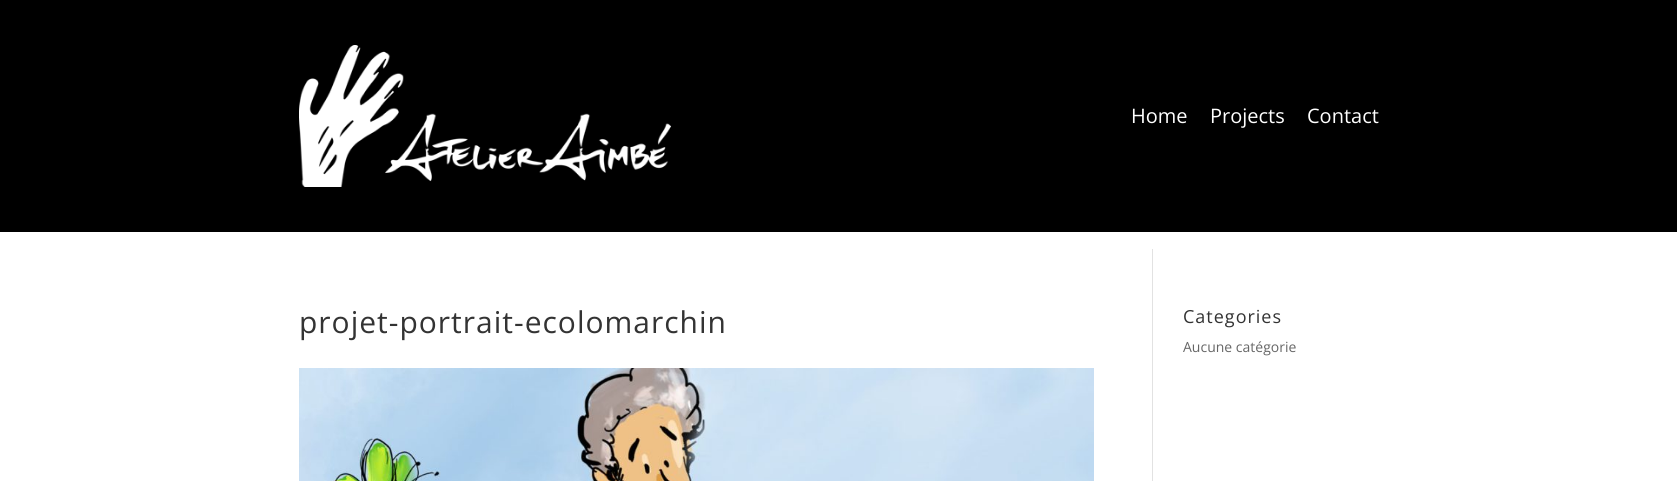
import math
import cairo


def use_color(cr, r, g, b):
  cr.set_source_rgb(r / 255, g / 255, b / 255)

def text(cr, x, y, s, family, size, color, bold=False, italic=False):
  cr.select_font_face(family, cairo.FONT_SLANT_ITALIC if italic else cairo.FONT_SLANT_NORMAL, cairo.FONT_WEIGHT_BOLD if bold else cairo.FONT_WEIGHT_NORMAL)
  cr.set_font_size(size)
  use_color(cr, *color)
  cr.move_to(x, y)
  cr.show_text(s)

def spaced_text(cr, x, y, s, letter, word):
  cr.move_to(x, y)
  for ch in s:
    cr.show_text(ch)
    cr.rel_move_to(letter + word * (ch == ' '), 0)

def box(cr, x, y, w, h, *color):
  use_color(cr, *color)
  cr.rectangle(x, y, w, h)
  cr.fill()

def picture(cr, path, x, y, w, h):
  cr.save()
  cr.set_source_surface(cairo.ImageSurface.create_from_png(path), x, y)
  cr.rectangle(x, y, w, h)
  cr.fill()
  cr.restore()

def draw(cr):
  use_color(cr, 255, 255, 255)
  cr.paint()
  box(cr, 0, 0, 1677, 232, 0, 0, 0)
  picture(cr, "img_01.png", 299, 45, 373, 142)
  box(cr, 1152, 249, 1, 232, 226, 226, 226)
  picture(cr, "img_02.png", 299, 368, 795, 113)
  text(cr, 1131, 123, "Home", "Open Sans", 20, (255, 255, 255))
  text(cr, 1210, 123, "Projects", "Open Sans", 20, (255, 255, 255))
  text(cr, 1307, 123, "Contact", "Open Sans", 20, (255, 255, 255))
  cr.set_font_size(30)
  use_color(cr, 51, 51, 51)
  spaced_text(cr, 299, 333, "projet-portrait-ecolomarchin", 1, 0)
  cr.set_font_size(18)
  spaced_text(cr, 1183, 323, "Categories", 1, 0)
  text(cr, 1183, 352, "Aucune catégorie", "Open Sans", 14, (102, 102, 102))


surface = cairo.ImageSurface(cairo.FORMAT_RGB24, 1677, 481)
cr = cairo.Context(surface)
options = cairo.FontOptions()
options.set_hint_metrics(cairo.HINT_METRICS_OFF)
options.set_hint_style(cairo.HINT_STYLE_NONE)
cr.set_font_options(options)
cr.set_miter_limit(4)
draw(cr)
surface.write_to_png("out.png")
